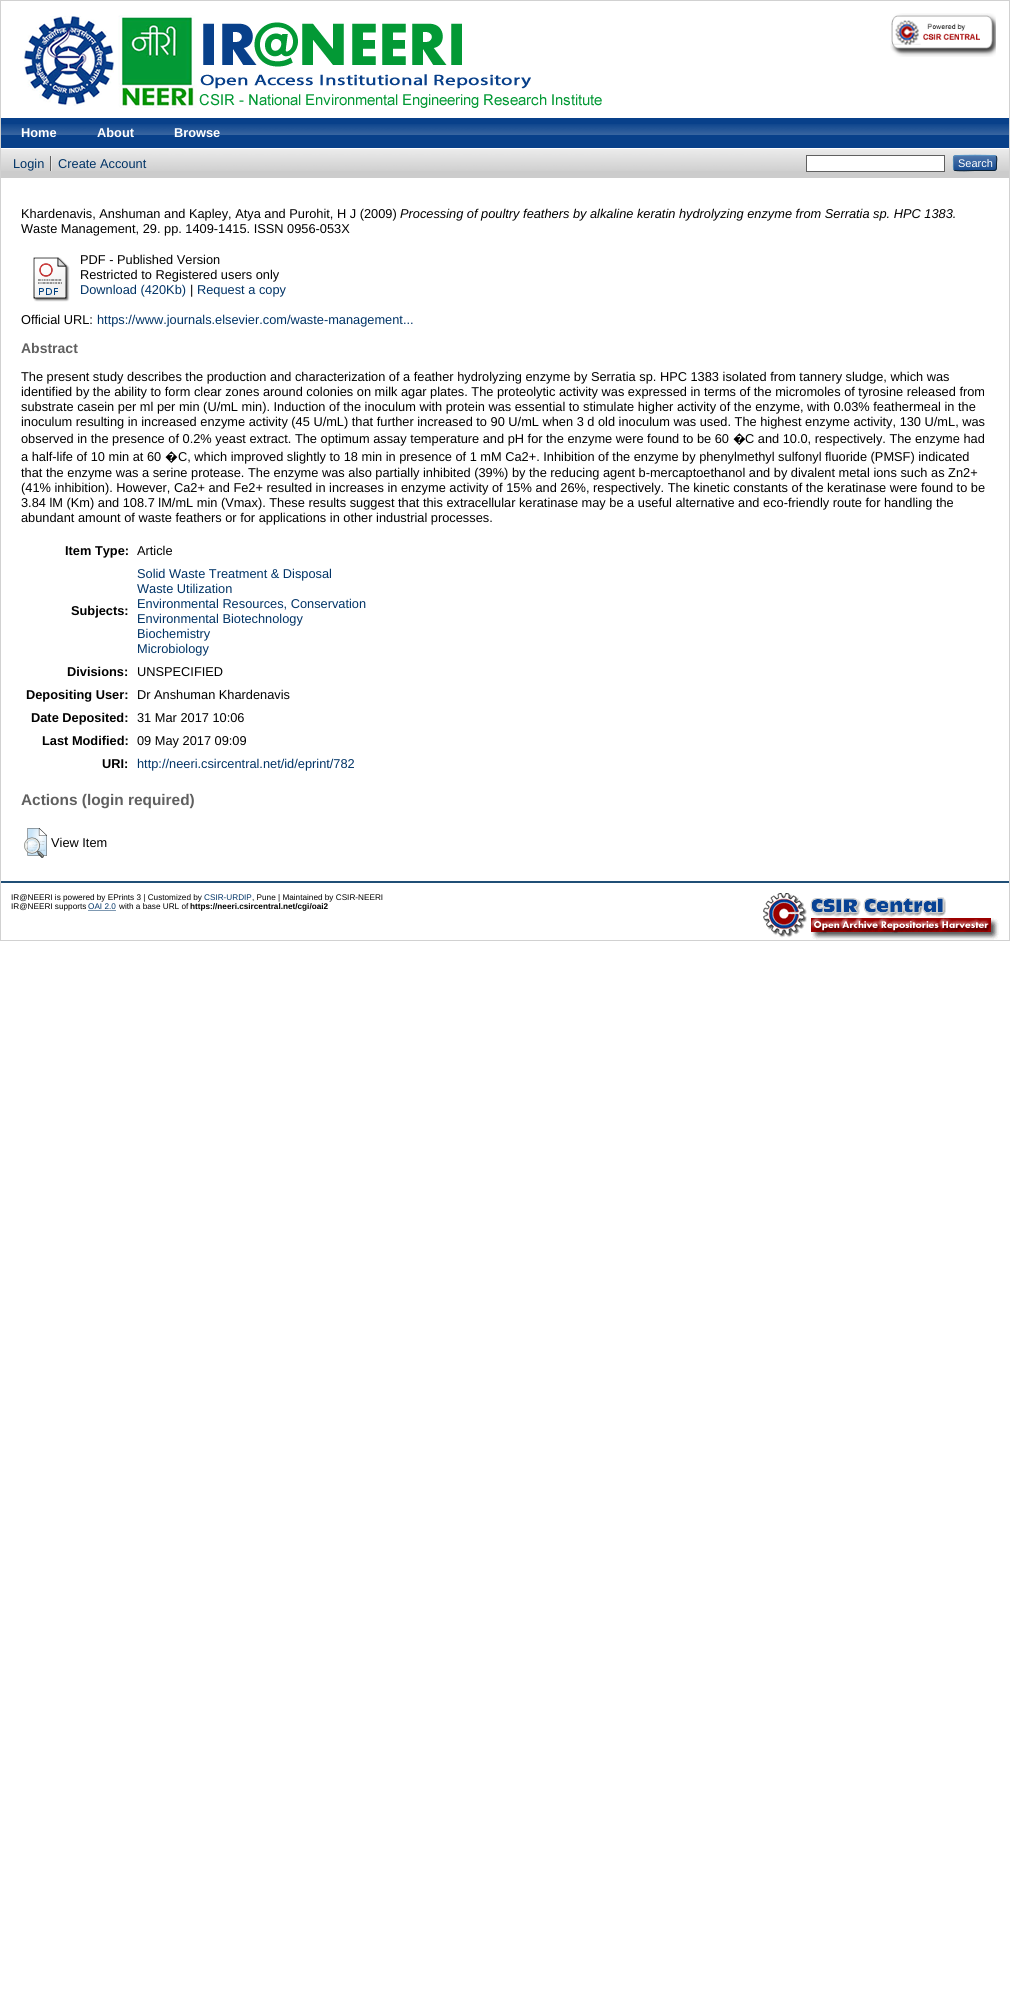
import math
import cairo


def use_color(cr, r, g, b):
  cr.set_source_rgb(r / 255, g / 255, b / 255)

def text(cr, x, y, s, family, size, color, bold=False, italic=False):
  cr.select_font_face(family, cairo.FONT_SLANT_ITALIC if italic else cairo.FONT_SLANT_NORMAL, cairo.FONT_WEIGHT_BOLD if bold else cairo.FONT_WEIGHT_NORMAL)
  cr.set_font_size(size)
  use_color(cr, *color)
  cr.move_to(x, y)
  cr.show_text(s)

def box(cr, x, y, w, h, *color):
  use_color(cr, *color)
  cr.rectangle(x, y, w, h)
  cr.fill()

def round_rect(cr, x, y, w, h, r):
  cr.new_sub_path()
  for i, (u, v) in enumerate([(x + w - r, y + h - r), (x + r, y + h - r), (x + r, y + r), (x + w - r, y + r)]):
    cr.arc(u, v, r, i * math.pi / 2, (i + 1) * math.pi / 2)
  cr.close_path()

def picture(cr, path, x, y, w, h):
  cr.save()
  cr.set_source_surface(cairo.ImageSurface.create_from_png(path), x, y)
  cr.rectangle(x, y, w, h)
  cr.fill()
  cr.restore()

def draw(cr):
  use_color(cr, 255, 255, 255)
  cr.paint()
  box(cr, 0, 0, 1010, 1, 209, 209, 209)
  box(cr, 1009, 0, 1, 941, 209, 209, 209)
  box(cr, 0, 940, 1010, 1, 209, 209, 209)
  box(cr, 0, 0, 1, 941, 209, 209, 209)
  picture(cr, "img_01.png", 24, 15, 578, 93)
  picture(cr, "img_02.png", 890, 13, 106, 44)
  box(cr, 1, 118, 1008, 30, 8, 64, 138)
  picture(cr, "img_03.png", 1, 124, 1008, 11)
  box(cr, 1, 149, 1008, 29, 204, 204, 204)
  picture(cr, "img_04.png", 1, 149, 1008, 22)
  box(cr, 50, 156, 1, 15, 96, 96, 96)
  box(cr, 51, 156, 1, 15, 232, 232, 232)
  use_color(cr, 255, 255, 255)
  cr.rectangle(806.5, 155.5, 138, 16)
  cr.fill_preserve()
  use_color(cr, 96, 96, 96)
  cr.set_line_width(1)
  cr.stroke()
  use_color(cr, 8, 64, 138)
  round_rect(cr, 953, 155, 44, 16, 3)
  cr.fill()
  picture(cr, "img_05.png", 953, 155, 44, 16)
  cr.new_path()
  cr.move_to(954, 156)
  cr.curve_to(955.5, 155, 994.5, 155, 996, 156)
  use_color(cr, 91, 151, 199)
  cr.stroke()
  cr.new_path()
  cr.move_to(996, 156)
  cr.curve_to(997.5, 158, 996.5, 161, 996.5, 163)
  cr.curve_to(996.5, 171.5, 997, 170.5, 987.5, 170.5)
  cr.line_to(975, 170.5)
  cr.curve_to(972, 170.5, 956, 171.5, 954, 170)
  use_color(cr, 13, 33, 49)
  cr.stroke()
  cr.new_path()
  cr.move_to(954, 170)
  cr.curve_to(953, 168.5, 953.5, 164.5, 953.5, 163)
  cr.curve_to(953.5, 161.5, 953, 157.5, 954, 156)
  use_color(cr, 82, 135, 179)
  cr.stroke()
  picture(cr, "img_06.png", 33, 257, 37, 45)
  picture(cr, "img_07.png", 24, 828, 23, 30)
  box(cr, 1, 881, 1008, 2, 32, 79, 118)
  picture(cr, "img_08.png", 763, 893, 236, 47)
  cr.new_path()
  cr.move_to(88.5, 910.5)
  cr.line_to(116, 910.5)
  use_color(cr, 0, 51, 102)
  cr.set_dash([1, 1])
  cr.stroke()
  text(cr, 21, 137, "Home", "Liberation Sans", 12.8, (255, 255, 255), bold=True)
  text(cr, 97, 137, "About", "Liberation Sans", 12.8, (255, 255, 255), bold=True)
  text(cr, 174, 137, "Browse", "Liberation Sans", 12.8, (255, 255, 255), bold=True)
  text(cr, 13, 168, "Login", "Liberation Sans", 12.8, (0, 51, 102))
  text(cr, 58, 168, "Create Account", "Liberation Sans", 12.8, (0, 51, 102))
  text(cr, 958, 167, "Search", "Liberation Sans", 11, (255, 255, 255))
  text(cr, 21, 218, "Khardenavis, Anshuman and Kapley, Atya and Purohit, H J (2009)", "Liberation Sans", 12.8, (0, 0, 0))
  text(cr, 400, 218, "Processing of poultry feathers by alkaline keratin hydrolyzing enzyme from Serratia sp. HPC 1383.", "Liberation Sans", 12.8, (0, 0, 0), italic=True)
  text(cr, 21, 233, "Waste Management, 29. pp. 1409-1415. ISSN 0956-053X", "Liberation Sans", 12.8, (0, 0, 0))
  text(cr, 80, 264, "PDF - Published Version", "Liberation Sans", 12.8, (0, 0, 0))
  text(cr, 80, 279, "Restricted to Registered users only", "Liberation Sans", 12.8, (0, 0, 0))
  text(cr, 80, 294, "Download (420Kb)", "Liberation Sans", 12.8, (0, 51, 102))
  text(cr, 190, 294, "|", "Liberation Sans", 12.8, (0, 0, 0))
  text(cr, 197, 294, "Request a copy", "Liberation Sans", 12.8, (0, 51, 102))
  text(cr, 21, 324, "Official URL:", "Liberation Sans", 12.8, (0, 0, 0))
  text(cr, 97, 324, "https://www.journals.elsevier.com/waste-management...", "Liberation Sans", 12.8, (0, 51, 102))
  text(cr, 21, 353, "Abstract", "Liberation Sans", 14, (96, 96, 96), bold=True)
  text(cr, 21, 381, "The present study describes the production and characterization of a feather hydrolyzing enzyme by Serratia sp. HPC 1383 isolated from tannery sludge, which was", "Liberation Sans", 12.8, (0, 0, 0))
  text(cr, 21, 396, "identified by the ability to form clear zones around colonies on milk agar plates. The proteolytic activity was expressed in terms of the micromoles of tyrosine released from", "Liberation Sans", 12.8, (0, 0, 0))
  text(cr, 21, 411, "substrate casein per ml per min (U/mL min). Induction of the inoculum with protein was essential to stimulate higher activity of the enzyme, with 0.03% feathermeal in the", "Liberation Sans", 12.8, (0, 0, 0))
  text(cr, 21, 426, "inoculum resulting in increased enzyme activity (45 U/mL) that further increased to 90 U/mL when 3 d old inoculum was used. The highest enzyme activity, 130 U/mL, was", "Liberation Sans", 12.8, (0, 0, 0))
  text(cr, 21, 443, "observed in the presence of 0.2% yeast extract. The optimum assay temperature and pH for the enzyme were found to be 60", "Liberation Sans", 12.8, (0, 0, 0))
  text(cr, 733, 443, "�", "Noto Sans", 12.8, (0, 0, 0))
  text(cr, 745, 443, "C and 10.0, respectively. The enzyme had", "Liberation Sans", 12.8, (0, 0, 0))
  text(cr, 21, 461, "a half-life of 10 min at 60", "Liberation Sans", 12.8, (0, 0, 0))
  text(cr, 165, 461, "�", "Noto Sans", 12.8, (0, 0, 0))
  text(cr, 178, 461, "C, which improved slightly to 18 min in presence of 1 mM Ca2+. Inhibition of the enzyme by phenylmethyl sulfonyl fluoride (PMSF) indicated", "Liberation Sans", 12.8, (0, 0, 0))
  text(cr, 21, 477, "that the enzyme was a serine protease. The enzyme was also partially inhibited (39%) by the reducing agent b-mercaptoethanol and by divalent metal ions such as Zn2+", "Liberation Sans", 12.8, (0, 0, 0))
  text(cr, 21, 492, "(41% inhibition). However, Ca2+ and Fe2+ resulted in increases in enzyme activity of 15% and 26%, respectively. The kinetic constants of the keratinase were found to be", "Liberation Sans", 12.8, (0, 0, 0))
  text(cr, 21, 507, "3.84 lM (Km) and 108.7 lM/mL min (Vmax). These results suggest that this extracellular keratinase may be a useful alternative and eco-friendly route for handling the", "Liberation Sans", 12.8, (0, 0, 0))
  text(cr, 21, 522, "abundant amount of waste feathers or for applications in other industrial processes.", "Liberation Sans", 12.8, (0, 0, 0))
  text(cr, 65, 555, "Item Type:", "Liberation Sans", 12.8, (0, 0, 0), bold=True)
  text(cr, 137, 555, "Article", "Liberation Sans", 12.8, (0, 0, 0))
  text(cr, 71, 615, "Subjects:", "Liberation Sans", 12.8, (0, 0, 0), bold=True)
  text(cr, 137, 578, "Solid Waste Treatment & Disposal", "Liberation Sans", 12.8, (0, 51, 102))
  text(cr, 137, 593, "Waste Utilization", "Liberation Sans", 12.8, (0, 51, 102))
  text(cr, 137, 608, "Environmental Resources, Conservation", "Liberation Sans", 12.8, (0, 51, 102))
  text(cr, 137, 623, "Environmental Biotechnology", "Liberation Sans", 12.8, (0, 51, 102))
  text(cr, 137, 638, "Biochemistry", "Liberation Sans", 12.8, (0, 51, 102))
  text(cr, 137, 653, "Microbiology", "Liberation Sans", 12.8, (0, 51, 102))
  text(cr, 67, 676, "Divisions:", "Liberation Sans", 12.8, (0, 0, 0), bold=True)
  text(cr, 137, 676, "UNSPECIFIED", "Liberation Sans", 12.8, (0, 0, 0))
  text(cr, 26, 699, "Depositing User:", "Liberation Sans", 12.8, (0, 0, 0), bold=True)
  text(cr, 137, 699, "Dr Anshuman Khardenavis", "Liberation Sans", 12.8, (0, 0, 0))
  text(cr, 31, 722, "Date Deposited:", "Liberation Sans", 12.8, (0, 0, 0), bold=True)
  text(cr, 137, 722, "31 Mar 2017 10:06", "Liberation Sans", 12.8, (0, 0, 0))
  text(cr, 42, 745, "Last Modified:", "Liberation Sans", 12.8, (0, 0, 0), bold=True)
  text(cr, 137, 745, "09 May 2017 09:09", "Liberation Sans", 12.8, (0, 0, 0))
  text(cr, 102, 768, "URI:", "Liberation Sans", 12.8, (0, 0, 0), bold=True)
  text(cr, 137, 768, "http://neeri.csircentral.net/id/eprint/782", "Liberation Sans", 12.8, (0, 51, 102))
  text(cr, 21, 805, "Actions (login required)", "Liberation Sans", 15.4, (96, 96, 96), bold=True)
  text(cr, 51, 847, "View Item", "Liberation Sans", 12.8, (0, 0, 0))
  text(cr, 11, 900, "IR@NEERI is powered by EPrints 3 | Customized by", "Liberation Sans", 8.2, (0, 0, 0))
  text(cr, 204, 900, "CSIR-URDIP", "Liberation Sans", 8.2, (0, 51, 102))
  text(cr, 252, 900, ", Pune | Maintained by CSIR-NEERI", "Liberation Sans", 8.2, (0, 0, 0))
  text(cr, 11, 909, "IR@NEERI supports", "Liberation Sans", 8.2, (0, 0, 0))
  text(cr, 88, 909, "OAI 2.0", "Liberation Sans", 8.2, (0, 51, 102))
  text(cr, 119, 909, "with a base URL of", "Liberation Sans", 8.2, (0, 0, 0))
  text(cr, 190, 909, "https://neeri.csircentral.net/cgi/oai2", "Liberation Sans", 8.2, (0, 0, 0), bold=True)


surface = cairo.ImageSurface(cairo.FORMAT_RGB24, 1010, 2016)
cr = cairo.Context(surface)
options = cairo.FontOptions()
options.set_hint_metrics(cairo.HINT_METRICS_OFF)
options.set_hint_style(cairo.HINT_STYLE_NONE)
cr.set_font_options(options)
cr.set_miter_limit(4)
draw(cr)
surface.write_to_png("out.png")
